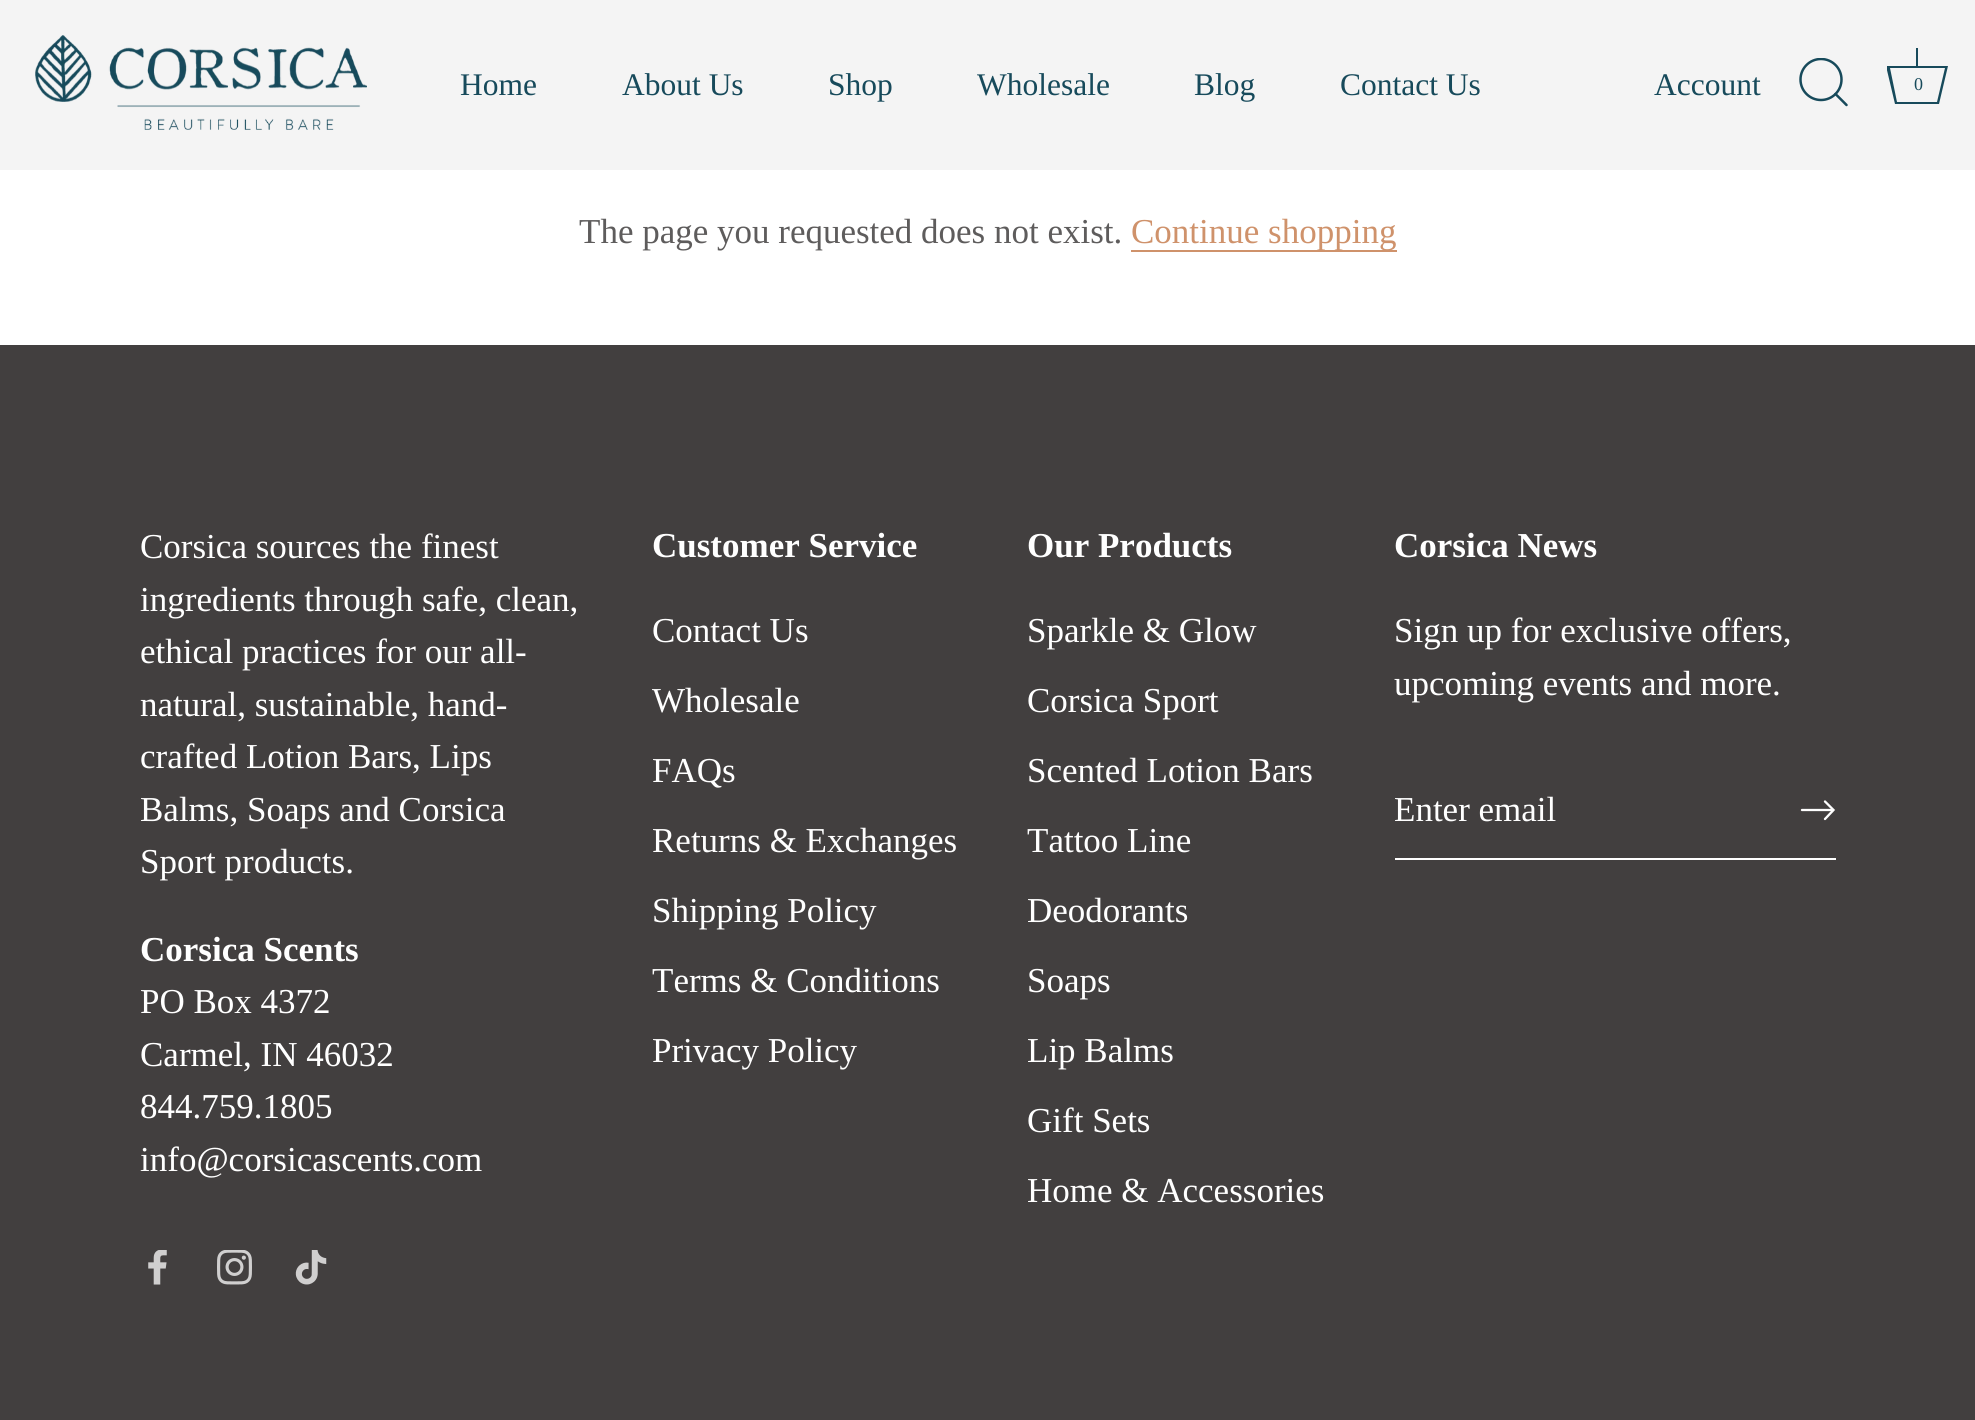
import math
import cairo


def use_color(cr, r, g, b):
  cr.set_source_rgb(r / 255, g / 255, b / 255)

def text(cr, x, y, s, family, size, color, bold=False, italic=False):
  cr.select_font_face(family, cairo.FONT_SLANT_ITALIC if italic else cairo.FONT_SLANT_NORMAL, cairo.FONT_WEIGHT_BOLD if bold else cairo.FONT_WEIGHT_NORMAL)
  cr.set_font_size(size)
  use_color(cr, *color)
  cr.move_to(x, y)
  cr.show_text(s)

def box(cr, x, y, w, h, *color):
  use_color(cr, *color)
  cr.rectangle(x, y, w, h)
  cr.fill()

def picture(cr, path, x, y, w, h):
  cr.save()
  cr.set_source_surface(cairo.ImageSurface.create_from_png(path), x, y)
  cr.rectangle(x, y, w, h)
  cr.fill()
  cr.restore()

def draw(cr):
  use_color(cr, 255, 255, 255)
  cr.paint()
  box(cr, 0, 0, 1975, 170, 244, 244, 244)
  picture(cr, "img_01.png", 35, 35, 332, 95)
  cr.save()
  cr.rectangle(1799, 58, 51, 51)
  cr.clip()
  cr.arc(1821, 79.5, 20.5, 0, 2 * math.pi)
  use_color(cr, 23, 74, 91)
  cr.set_line_width(2.5)
  cr.stroke()
  cr.restore()
  cr.new_path()
  cr.move_to(1846.5, 105)
  cr.line_to(1835.5, 94)
  use_color(cr, 23, 74, 91)
  cr.set_line_width(2.5)
  cr.set_line_cap(cairo.LINE_CAP_ROUND)
  cr.set_line_join(cairo.LINE_JOIN_ROUND)
  cr.stroke()
  box(cr, 1916, 48, 2, 18, 23, 74, 91)
  cr.save()
  cr.rectangle(1887, 46, 61, 61)
  cr.clip()
  cr.new_path()
  cr.move_to(1945, 68)
  cr.line_to(1937, 102)
  cr.line_to(1897, 102)
  cr.line_to(1890, 68)
  cr.line_to(1945, 68)
  cr.move_to(1948, 66)
  cr.line_to(1886, 66)
  cr.line_to(1895, 104)
  cr.line_to(1939, 104)
  cr.close_path()
  cr.fill()
  cr.restore()
  box(cr, 1131, 250, 266, 2, 207, 146, 107)
  box(cr, 0, 345, 1975, 1075, 66, 63, 63)
  picture(cr, "img_02.png", 148, 1250, 19, 35)
  picture(cr, "img_03.png", 217, 1250, 35, 35)
  picture(cr, "img_04.png", 295, 1250, 32, 35)
  box(cr, 1395, 858, 441, 2, 255, 255, 255)
  cr.new_path()
  cr.move_to(1825, 819)
  cr.line_to(1833.5, 810)
  cr.line_to(1825, 801.5)
  cr.set_line_width(2.3)
  cr.set_line_join(cairo.LINE_JOIN_MITER)
  cr.stroke()
  cr.new_path()
  cr.move_to(1832.5, 810)
  cr.line_to(1802, 810)
  cr.set_line_join(cairo.LINE_JOIN_ROUND)
  cr.stroke()
  text(cr, 460, 95, "Home", "Liberation Serif", 31.5, (23, 74, 91))
  text(cr, 622, 95, "About Us", "Liberation Serif", 31.5, (23, 74, 91))
  text(cr, 828, 95, "Shop", "Liberation Serif", 31.5, (23, 74, 91))
  text(cr, 977, 95, "Wholesale", "Liberation Serif", 31.5, (23, 74, 91))
  text(cr, 1194, 95, "Blog", "Liberation Serif", 31.5, (23, 74, 91))
  text(cr, 1340, 95, "Contact Us", "Liberation Serif", 31.5, (23, 74, 91))
  text(cr, 1654, 95, "Account", "Liberation Serif", 31.5, (23, 74, 91))
  text(cr, 1914, 90, "0", "Liberation Serif", 18, (23, 74, 91))
  text(cr, 579, 243, "The page you requested does not exist.", "Liberation Serif", 35, (94, 92, 92))
  text(cr, 1131, 243, "Continue shopping", "Liberation Serif", 35, (207, 146, 107))
  text(cr, 140, 558, "Corsica sources the finest", "Liberation Serif", 35, (255, 255, 255))
  text(cr, 140, 611, "ingredients through safe, clean,", "Liberation Serif", 35, (255, 255, 255))
  text(cr, 140, 663, "ethical practices for our all-", "Liberation Serif", 35, (255, 255, 255))
  text(cr, 140, 716, "natural, sustainable, hand-", "Liberation Serif", 35, (255, 255, 255))
  text(cr, 140, 768, "crafted Lotion Bars, Lips", "Liberation Serif", 35, (255, 255, 255))
  text(cr, 140, 821, "Balms, Soaps and Corsica", "Liberation Serif", 35, (255, 255, 255))
  text(cr, 140, 873, "Sport products.", "Liberation Serif", 35, (255, 255, 255))
  text(cr, 140, 961, "Corsica Scents", "Liberation Serif", 35, (255, 255, 255), bold=True)
  text(cr, 140, 1013, "PO Box 4372", "Liberation Serif", 35, (255, 255, 255))
  text(cr, 140, 1066, "Carmel, IN 46032", "Liberation Serif", 35, (255, 255, 255))
  text(cr, 140, 1118, "844.759.1805", "Liberation Serif", 35, (255, 255, 255))
  text(cr, 140, 1171, "info@corsicascents.com", "Liberation Serif", 35, (255, 255, 255))
  text(cr, 652, 557, "Customer Service", "Liberation Serif", 35, (255, 255, 255), bold=True)
  text(cr, 652, 642, "Contact Us", "Liberation Serif", 35, (255, 255, 255))
  text(cr, 652, 712, "Wholesale", "Liberation Serif", 35, (255, 255, 255))
  text(cr, 652, 782, "FAQs", "Liberation Serif", 35, (255, 255, 255))
  text(cr, 652, 852, "Returns & Exchanges", "Liberation Serif", 35, (255, 255, 255))
  text(cr, 652, 922, "Shipping Policy", "Liberation Serif", 35, (255, 255, 255))
  text(cr, 652, 992, "Terms & Conditions", "Liberation Serif", 35, (255, 255, 255))
  text(cr, 652, 1062, "Privacy Policy", "Liberation Serif", 35, (255, 255, 255))
  text(cr, 1027, 557, "Our Products", "Liberation Serif", 35, (255, 255, 255), bold=True)
  text(cr, 1027, 642, "Sparkle & Glow", "Liberation Serif", 35, (255, 255, 255))
  text(cr, 1027, 712, "Corsica Sport", "Liberation Serif", 35, (255, 255, 255))
  text(cr, 1027, 782, "Scented Lotion Bars", "Liberation Serif", 35, (255, 255, 255))
  text(cr, 1027, 852, "Tattoo Line", "Liberation Serif", 35, (255, 255, 255))
  text(cr, 1027, 922, "Deodorants", "Liberation Serif", 35, (255, 255, 255))
  text(cr, 1027, 992, "Soaps", "Liberation Serif", 35, (255, 255, 255))
  text(cr, 1027, 1062, "Lip Balms", "Liberation Serif", 35, (255, 255, 255))
  text(cr, 1027, 1132, "Gift Sets", "Liberation Serif", 35, (255, 255, 255))
  text(cr, 1027, 1202, "Home & Accessories", "Liberation Serif", 35, (255, 255, 255))
  text(cr, 1394, 557, "Corsica News", "Liberation Serif", 35, (255, 255, 255), bold=True)
  text(cr, 1394, 642, "Sign up for exclusive offers,", "Liberation Serif", 35, (255, 255, 255))
  text(cr, 1394, 695, "upcoming events and more.", "Liberation Serif", 35, (255, 255, 255))
  text(cr, 1394, 821, "Enter email", "Liberation Serif", 35, (255, 255, 255))


surface = cairo.ImageSurface(cairo.FORMAT_RGB24, 1975, 1420)
cr = cairo.Context(surface)
options = cairo.FontOptions()
options.set_hint_metrics(cairo.HINT_METRICS_OFF)
options.set_hint_style(cairo.HINT_STYLE_NONE)
cr.set_font_options(options)
cr.set_miter_limit(4)
draw(cr)
surface.write_to_png("out.png")
